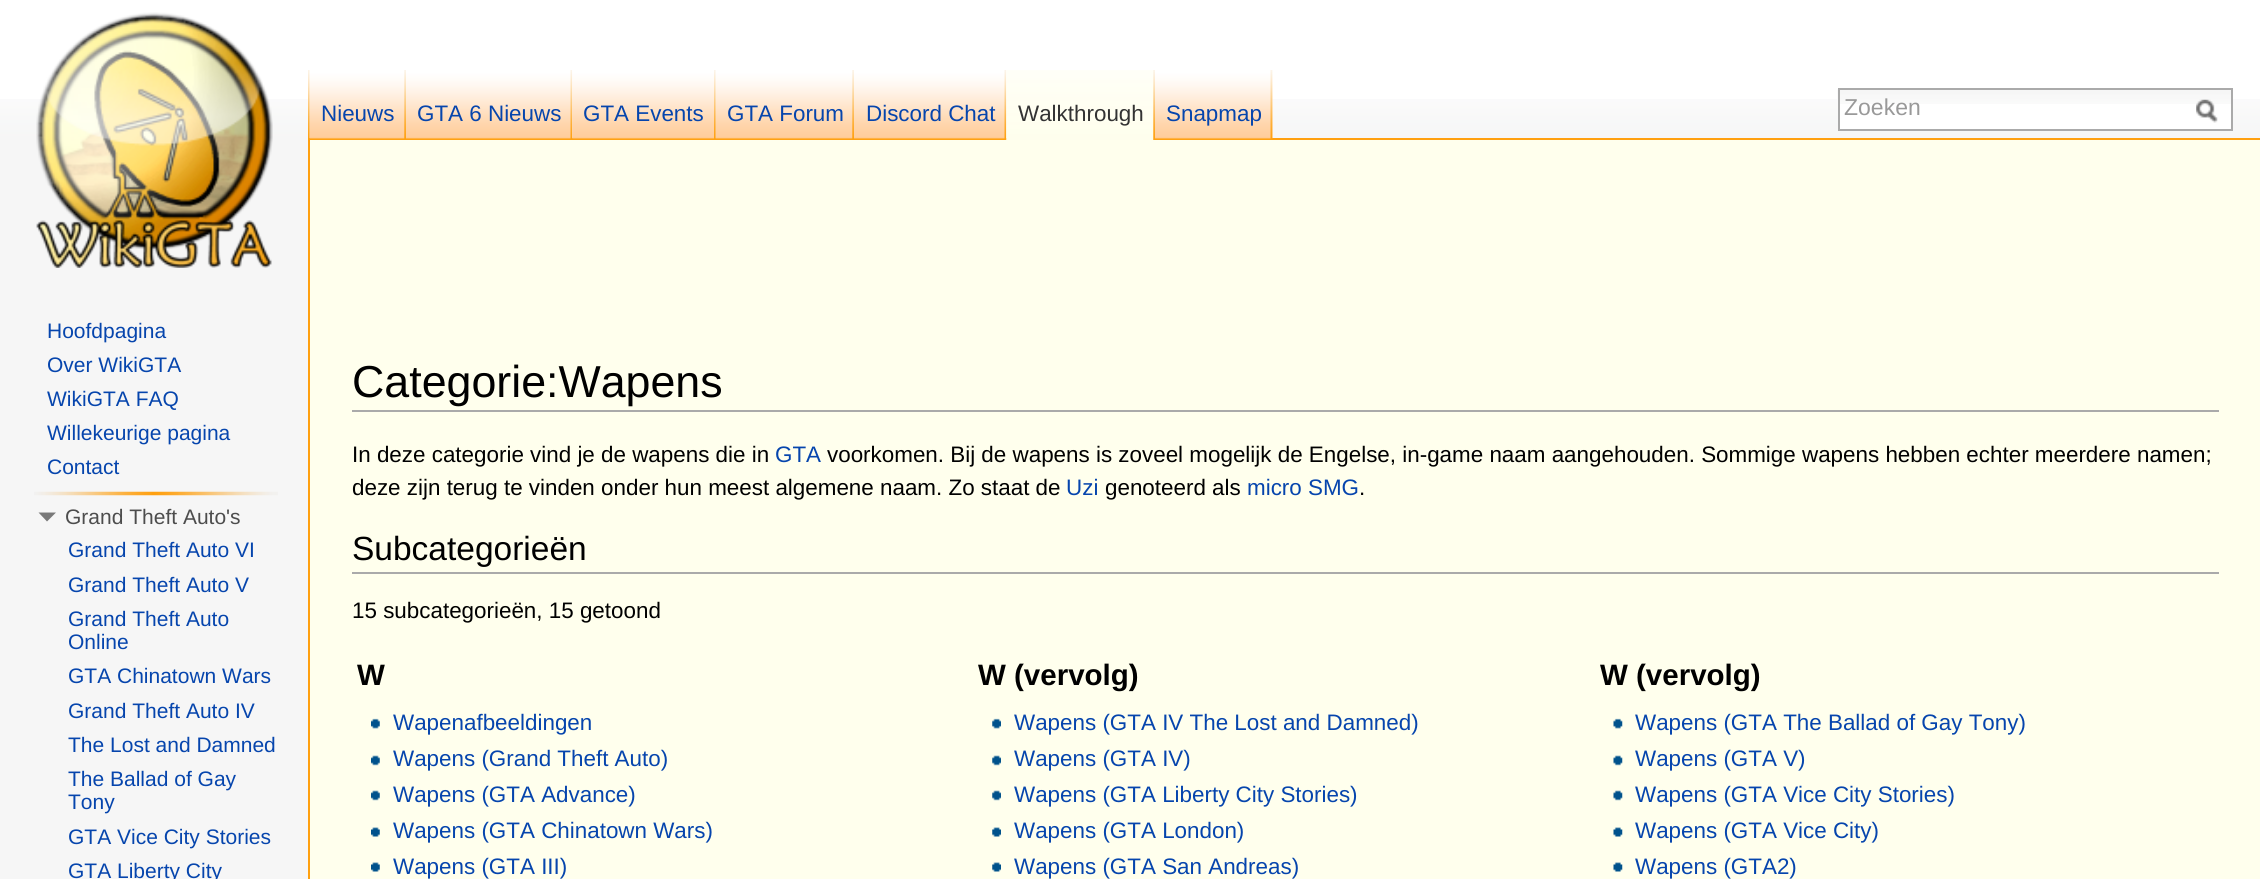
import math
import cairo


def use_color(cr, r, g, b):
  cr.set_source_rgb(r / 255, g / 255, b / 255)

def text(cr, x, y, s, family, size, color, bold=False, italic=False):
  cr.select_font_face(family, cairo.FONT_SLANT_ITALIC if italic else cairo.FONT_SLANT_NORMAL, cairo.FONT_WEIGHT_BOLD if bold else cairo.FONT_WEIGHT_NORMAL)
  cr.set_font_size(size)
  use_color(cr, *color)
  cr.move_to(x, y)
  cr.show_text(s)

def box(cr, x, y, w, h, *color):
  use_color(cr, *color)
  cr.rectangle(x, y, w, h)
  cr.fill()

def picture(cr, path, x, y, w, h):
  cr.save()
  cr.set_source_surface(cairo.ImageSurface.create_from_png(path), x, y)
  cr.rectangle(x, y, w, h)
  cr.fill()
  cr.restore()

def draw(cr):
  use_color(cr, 246, 246, 246)
  cr.paint()
  box(cr, 0, 0, 2260, 99, 255, 255, 255)
  picture(cr, "img_01.png", 0, 99, 2260, 41)
  picture(cr, "img_02.png", 308, 70, 2, 68)
  picture(cr, "img_03.png", 1272, 70, 1, 68)
  box(cr, 308, 138, 2, 741, 255, 160, 15)
  picture(cr, "img_04.png", 309, 70, 97, 70)
  picture(cr, "img_05.png", 404, 70, 2, 69)
  box(cr, 572, 138, 1688, 2, 255, 160, 15)
  picture(cr, "img_06.png", 406, 70, 167, 70)
  picture(cr, "img_07.png", 570, 70, 3, 69)
  picture(cr, "img_08.png", 572, 70, 144, 70)
  picture(cr, "img_09.png", 714, 70, 2, 70)
  picture(cr, "img_10.png", 715, 70, 139, 70)
  picture(cr, "img_05.png", 852, 70, 2, 69)
  picture(cr, "img_11.png", 854, 70, 153, 70)
  picture(cr, "img_07.png", 1004, 70, 3, 69)
  picture(cr, "img_12.png", 1006, 70, 148, 70)
  picture(cr, "img_13.png", 1153, 70, 2, 70)
  picture(cr, "img_14.png", 1155, 70, 118, 70)
  picture(cr, "img_15.png", 1270, 70, 3, 69)
  box(cr, 1840, 104, 391, 25, 255, 255, 255)
  picture(cr, "img_16.png", 1837, 89, 394, 15)
  cr.rectangle(1839, 89, 393, 41)
  use_color(cr, 170, 170, 170)
  cr.stroke()
  picture(cr, "img_17.png", 2196, 99, 22, 24)
  picture(cr, "img_18.png", 36, 12, 237, 256)
  picture(cr, "img_19.png", 34, 491, 244, 5)
  use_color(cr, 121, 121, 121)
  cr.new_path()
  cr.move_to(56, 512.5)
  cr.line_to(47, 521.5)
  cr.line_to(38.5, 512.5)
  cr.close_path()
  cr.fill()
  box(cr, 310, 140, 1950, 739, 255, 255, 237)
  box(cr, 352, 410, 1867, 2, 170, 170, 170)
  box(cr, 352, 572, 1867, 2, 170, 170, 170)
  picture(cr, "img_20.png", 371, 718, 9, 11)
  picture(cr, "img_21.png", 371, 755, 9, 11)
  picture(cr, "img_21.png", 371, 790, 9, 11)
  picture(cr, "img_22.png", 371, 827, 9, 10)
  picture(cr, "img_22.png", 371, 862, 9, 10)
  picture(cr, "img_23.png", 992, 718, 9, 11)
  picture(cr, "img_24.png", 992, 755, 9, 11)
  picture(cr, "img_24.png", 992, 790, 9, 11)
  picture(cr, "img_25.png", 992, 827, 9, 10)
  picture(cr, "img_25.png", 992, 862, 9, 10)
  picture(cr, "img_26.png", 1613, 718, 10, 11)
  picture(cr, "img_27.png", 1613, 755, 10, 11)
  picture(cr, "img_27.png", 1613, 790, 10, 11)
  picture(cr, "img_28.png", 1613, 827, 10, 10)
  picture(cr, "img_28.png", 1613, 862, 10, 10)
  text(cr, 321, 121, "Nieuws", "Liberation Sans", 22.4, (6, 69, 173))
  text(cr, 417, 121, "GTA 6 Nieuws", "Liberation Sans", 22.4, (6, 69, 173))
  text(cr, 583, 121, "GTA Events", "Liberation Sans", 22.4, (6, 69, 173))
  text(cr, 727, 121, "GTA Forum", "Liberation Sans", 22.4, (6, 69, 173))
  text(cr, 866, 121, "Discord Chat", "Liberation Sans", 22.4, (6, 69, 173))
  text(cr, 1018, 121, "Walkthrough", "Liberation Sans", 22.4, (51, 51, 51))
  text(cr, 1166, 121, "Snapmap", "Liberation Sans", 22.4, (6, 69, 173))
  text(cr, 1844, 115, "Zoeken", "Liberation Sans", 23, (153, 153, 153))
  text(cr, 47, 338, "Hoofdpagina", "Liberation Sans", 21, (6, 69, 173))
  text(cr, 47, 372, "Over WikiGTA", "Liberation Sans", 21, (6, 69, 173))
  text(cr, 47, 406, "WikiGTA FAQ", "Liberation Sans", 21, (6, 69, 173))
  text(cr, 47, 440, "Willekeurige pagina", "Liberation Sans", 21, (6, 69, 173))
  text(cr, 47, 474, "Contact", "Liberation Sans", 21, (6, 69, 173))
  text(cr, 65, 524, "Grand Theft Auto's", "Liberation Sans", 21, (77, 77, 77))
  text(cr, 68, 557, "Grand Theft Auto VI", "Liberation Sans", 21, (6, 69, 173))
  text(cr, 68, 592, "Grand Theft Auto V", "Liberation Sans", 21, (6, 69, 173))
  text(cr, 68, 626, "Grand Theft Auto", "Liberation Sans", 21, (6, 69, 173))
  text(cr, 68, 649, "Online", "Liberation Sans", 21, (6, 69, 173))
  text(cr, 68, 683, "GTA Chinatown Wars", "Liberation Sans", 21, (6, 69, 173))
  text(cr, 68, 718, "Grand Theft Auto IV", "Liberation Sans", 21, (6, 69, 173))
  text(cr, 68, 752, "The Lost and Damned", "Liberation Sans", 21, (6, 69, 173))
  text(cr, 68, 786, "The Ballad of Gay", "Liberation Sans", 21, (6, 69, 173))
  text(cr, 68, 809, "Tony", "Liberation Sans", 21, (6, 69, 173))
  text(cr, 68, 844, "GTA Vice City Stories", "Liberation Sans", 21, (6, 69, 173))
  text(cr, 68, 878, "GTA Liberty City", "Liberation Sans", 21, (6, 69, 173))
  text(cr, 352, 397, "Categorie:Wapens", "Liberation Sans", 44.75, (0, 0, 0))
  text(cr, 352, 462, "In deze categorie vind je de wapens die in", "Liberation Sans", 22.4, (0, 0, 0))
  text(cr, 775, 462, "GTA", "Liberation Sans", 22.4, (6, 69, 173))
  text(cr, 827, 462, "voorkomen. Bij de wapens is zoveel mogelijk de Engelse, in-game naam aangehouden. Sommige wapens hebben echter meerdere namen;", "Liberation Sans", 22.4, (0, 0, 0))
  text(cr, 352, 495, "deze zijn terug te vinden onder hun meest algemene naam. Zo staat de", "Liberation Sans", 22.4, (0, 0, 0))
  text(cr, 1066, 495, "Uzi", "Liberation Sans", 22.4, (6, 69, 173))
  text(cr, 1105, 495, "genoteerd als", "Liberation Sans", 22.4, (0, 0, 0))
  text(cr, 1247, 495, "micro SMG", "Liberation Sans", 22.4, (6, 69, 173))
  text(cr, 1359, 495, ".", "Liberation Sans", 22.4, (0, 0, 0))
  text(cr, 352, 560, "Subcategorieën", "Liberation Sans", 33.5, (0, 0, 0))
  text(cr, 352, 618, "15 subcategorieën, 15 getoond", "Liberation Sans", 22.4, (0, 0, 0))
  text(cr, 357, 685, "W", "Liberation Sans", 29.5, (0, 0, 0), bold=True)
  text(cr, 393, 730, "Wapenafbeeldingen", "Liberation Sans", 22.4, (6, 69, 173))
  text(cr, 393, 766, "Wapens (Grand Theft Auto)", "Liberation Sans", 22.4, (6, 69, 173))
  text(cr, 393, 802, "Wapens (GTA Advance)", "Liberation Sans", 22.4, (6, 69, 173))
  text(cr, 393, 838, "Wapens (GTA Chinatown Wars)", "Liberation Sans", 22.4, (6, 69, 173))
  text(cr, 393, 874, "Wapens (GTA III)", "Liberation Sans", 22.4, (6, 69, 173))
  text(cr, 978, 685, "W (vervolg)", "Liberation Sans", 29.5, (0, 0, 0), bold=True)
  text(cr, 1014, 730, "Wapens (GTA IV The Lost and Damned)", "Liberation Sans", 22.4, (6, 69, 173))
  text(cr, 1014, 766, "Wapens (GTA IV)", "Liberation Sans", 22.4, (6, 69, 173))
  text(cr, 1014, 802, "Wapens (GTA Liberty City Stories)", "Liberation Sans", 22.4, (6, 69, 173))
  text(cr, 1014, 838, "Wapens (GTA London)", "Liberation Sans", 22.4, (6, 69, 173))
  text(cr, 1014, 874, "Wapens (GTA San Andreas)", "Liberation Sans", 22.4, (6, 69, 173))
  text(cr, 1600, 685, "W (vervolg)", "Liberation Sans", 29.5, (0, 0, 0), bold=True)
  text(cr, 1635, 730, "Wapens (GTA The Ballad of Gay Tony)", "Liberation Sans", 22.4, (6, 69, 173))
  text(cr, 1635, 766, "Wapens (GTA V)", "Liberation Sans", 22.4, (6, 69, 173))
  text(cr, 1635, 802, "Wapens (GTA Vice City Stories)", "Liberation Sans", 22.4, (6, 69, 173))
  text(cr, 1635, 838, "Wapens (GTA Vice City)", "Liberation Sans", 22.4, (6, 69, 173))
  text(cr, 1635, 874, "Wapens (GTA2)", "Liberation Sans", 22.4, (6, 69, 173))


surface = cairo.ImageSurface(cairo.FORMAT_RGB24, 2260, 879)
cr = cairo.Context(surface)
options = cairo.FontOptions()
options.set_hint_metrics(cairo.HINT_METRICS_OFF)
options.set_hint_style(cairo.HINT_STYLE_NONE)
cr.set_font_options(options)
cr.set_miter_limit(4)
draw(cr)
surface.write_to_png("out.png")
